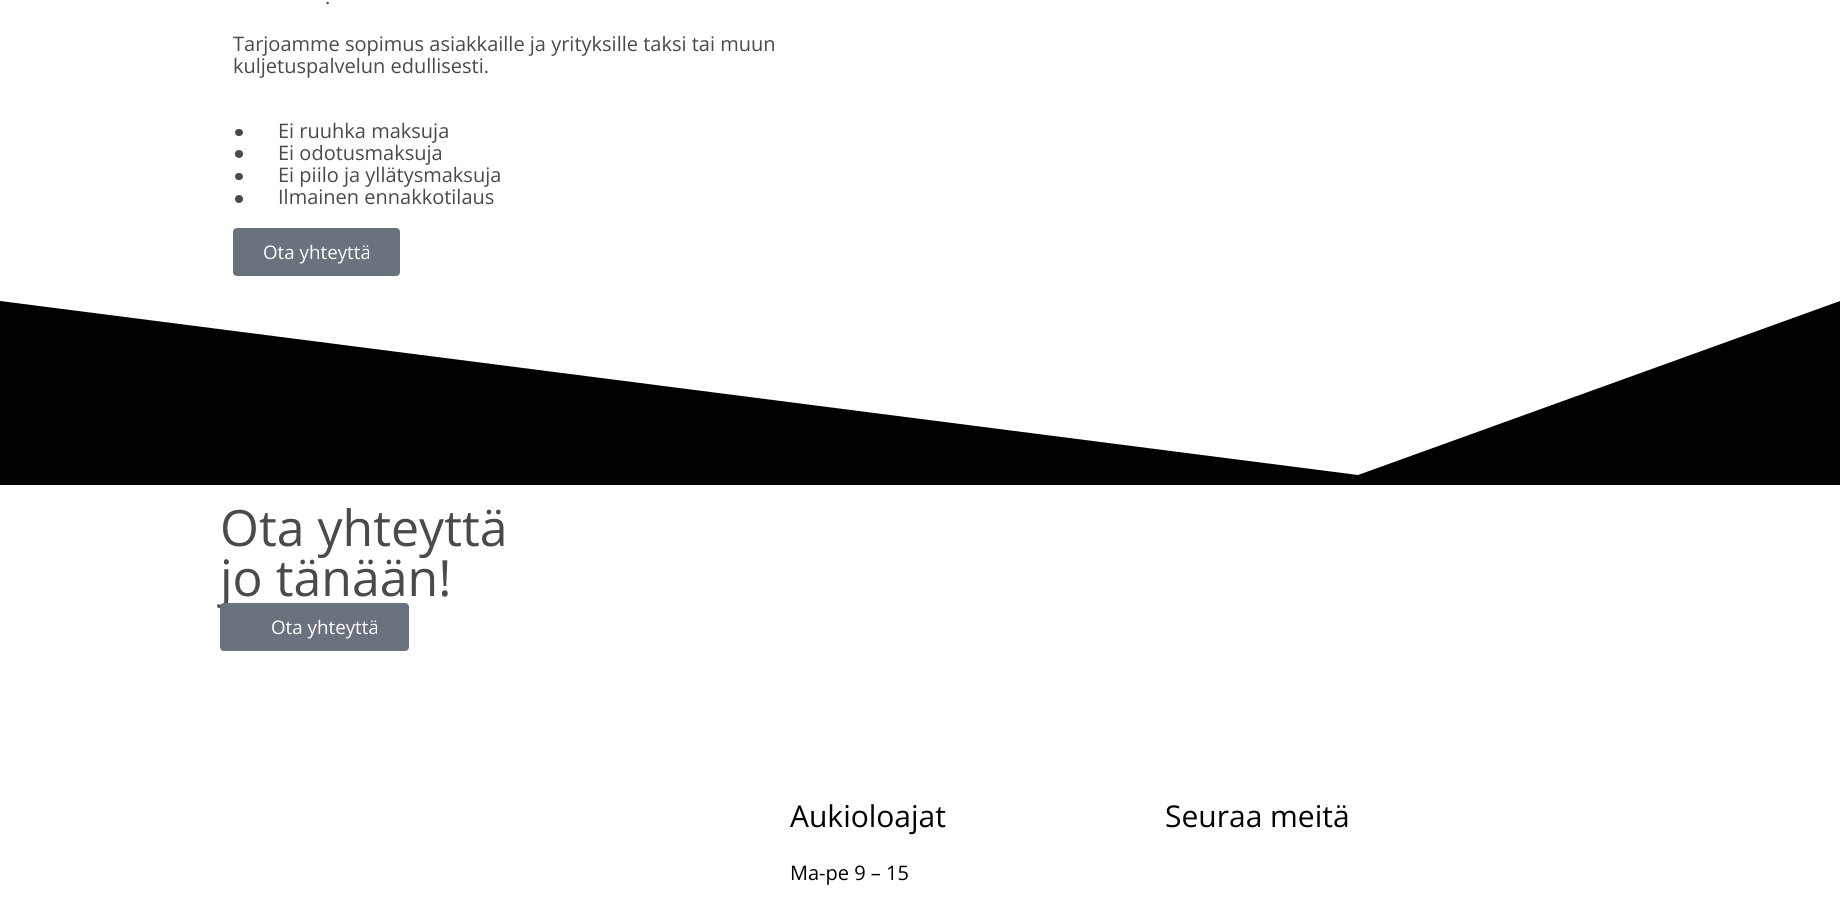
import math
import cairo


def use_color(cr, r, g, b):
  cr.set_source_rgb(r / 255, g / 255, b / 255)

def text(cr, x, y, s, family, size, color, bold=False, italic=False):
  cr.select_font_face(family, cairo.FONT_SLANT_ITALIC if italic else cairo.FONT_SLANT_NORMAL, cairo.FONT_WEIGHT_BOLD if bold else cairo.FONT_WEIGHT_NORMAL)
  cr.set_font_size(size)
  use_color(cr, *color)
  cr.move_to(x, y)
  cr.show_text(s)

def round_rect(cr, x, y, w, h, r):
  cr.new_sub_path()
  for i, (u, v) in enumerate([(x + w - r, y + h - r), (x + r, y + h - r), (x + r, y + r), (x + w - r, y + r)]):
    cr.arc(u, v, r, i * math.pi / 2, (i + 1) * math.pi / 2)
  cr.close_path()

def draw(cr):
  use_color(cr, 255, 255, 255)
  cr.paint()
  use_color(cr, 74, 74, 74)
  round_rect(cr, 235, 129, 8, 7, 3.5)
  cr.fill()
  cr.arc(239, 154, 4, 0, 2 * math.pi)
  cr.fill()
  round_rect(cr, 235, 173, 8, 7, 3.5)
  cr.fill()
  cr.arc(239, 199, 4, 0, 2 * math.pi)
  cr.fill()
  use_color(cr, 105, 114, 125)
  round_rect(cr, 233, 228, 167, 48, 4)
  cr.fill()
  use_color(cr, 0, 0, 0)
  cr.new_path()
  cr.move_to(1358, 475)
  cr.line_to(0, 301)
  cr.line_to(0, 485)
  cr.line_to(1840, 485)
  cr.line_to(1840, 301)
  cr.close_path()
  cr.fill()
  text(cr, 325, 4, ".", "Open Sans", 20, (74, 74, 74))
  text(cr, 233, 51, "Tarjoamme sopimus asiakkaille ja yrityksille taksi tai muun", "Open Sans", 20, (74, 74, 74))
  text(cr, 233, 73, "kuljetuspalvelun edullisesti.", "Open Sans", 20, (74, 74, 74))
  text(cr, 278, 138, "Ei ruuhka maksuja", "Open Sans", 20, (74, 74, 74))
  text(cr, 278, 160, "Ei odotusmaksuja", "Open Sans", 20, (74, 74, 74))
  text(cr, 278, 182, "Ei piilo ja yllätysmaksuja", "Open Sans", 20, (74, 74, 74))
  text(cr, 278, 204, "Ilmainen ennakkotilaus", "Open Sans", 20, (74, 74, 74))
  text(cr, 263, 259, "Ota yhteyttä", "Open Sans", 18.75, (255, 255, 255))
  text(cr, 220, 546, "Ota yhteyttä", "Open Sans", 50, (74, 74, 74))
  text(cr, 220, 596, "jo tänään!", "Open Sans", 50, (74, 74, 74))
  use_color(cr, 105, 114, 125)
  round_rect(cr, 220, 603, 189, 48, 4)
  cr.fill()
  text(cr, 271, 634, "Ota yhteyttä", "Open Sans", 18.75, (255, 255, 255))
  text(cr, 790, 827, "Aukioloajat", "Open Sans", 30, (0, 0, 0))
  text(cr, 790, 880, "Ma-pe 9 – 15", "Open Sans", 20, (0, 0, 0))
  text(cr, 1165, 827, "Seuraa meitä", "Open Sans", 30, (0, 0, 0))


surface = cairo.ImageSurface(cairo.FORMAT_RGB24, 1840, 916)
cr = cairo.Context(surface)
options = cairo.FontOptions()
options.set_hint_metrics(cairo.HINT_METRICS_OFF)
options.set_hint_style(cairo.HINT_STYLE_NONE)
cr.set_font_options(options)
cr.set_miter_limit(4)
draw(cr)
surface.write_to_png("out.png")
